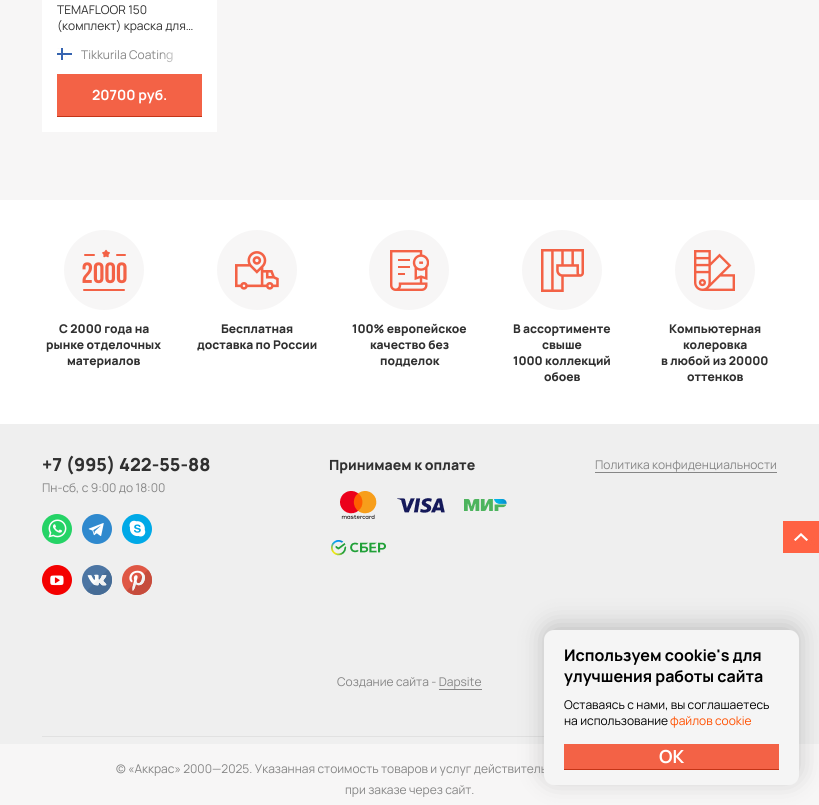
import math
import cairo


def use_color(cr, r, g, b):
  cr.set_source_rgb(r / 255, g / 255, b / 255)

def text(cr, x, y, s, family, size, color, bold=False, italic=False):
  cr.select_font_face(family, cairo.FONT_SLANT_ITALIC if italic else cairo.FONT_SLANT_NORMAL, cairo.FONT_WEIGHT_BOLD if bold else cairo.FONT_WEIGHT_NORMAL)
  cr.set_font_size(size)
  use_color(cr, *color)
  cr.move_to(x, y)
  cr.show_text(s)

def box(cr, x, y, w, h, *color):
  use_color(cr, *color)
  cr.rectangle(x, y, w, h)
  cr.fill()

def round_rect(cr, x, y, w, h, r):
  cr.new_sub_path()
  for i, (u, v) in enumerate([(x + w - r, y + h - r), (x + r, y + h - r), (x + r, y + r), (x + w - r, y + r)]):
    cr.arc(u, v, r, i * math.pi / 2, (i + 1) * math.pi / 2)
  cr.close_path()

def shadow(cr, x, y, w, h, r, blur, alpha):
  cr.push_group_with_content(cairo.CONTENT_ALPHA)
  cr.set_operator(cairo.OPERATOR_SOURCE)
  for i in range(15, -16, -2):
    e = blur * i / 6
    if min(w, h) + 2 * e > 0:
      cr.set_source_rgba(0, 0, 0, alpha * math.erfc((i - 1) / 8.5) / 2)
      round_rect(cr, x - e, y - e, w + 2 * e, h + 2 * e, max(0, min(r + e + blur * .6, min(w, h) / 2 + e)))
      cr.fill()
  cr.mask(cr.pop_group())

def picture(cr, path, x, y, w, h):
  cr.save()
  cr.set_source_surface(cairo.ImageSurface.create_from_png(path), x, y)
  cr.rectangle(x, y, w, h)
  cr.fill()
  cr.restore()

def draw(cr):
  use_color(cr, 247, 246, 246)
  cr.paint()
  box(cr, 42, 0, 175, 132, 255, 255, 255)
  picture(cr, "img_01.png", 57, 48, 15, 12)
  box(cr, 57, 74, 145, 42, 243, 98, 70)
  box(cr, 57, 116, 145, 1, 196, 52, 23)
  box(cr, 0, 200, 819, 224, 255, 255, 255)
  use_color(cr, 247, 246, 246)
  cr.arc(104, 270, 40, 0, 2 * math.pi)
  cr.fill()
  picture(cr, "img_02.png", 82, 249, 45, 42)
  cr.arc(257, 270, 40, 0, 2 * math.pi)
  cr.fill()
  picture(cr, "img_03.png", 235, 251, 44, 39)
  cr.arc(409, 270, 40, 0, 2 * math.pi)
  cr.fill()
  picture(cr, "img_04.png", 390, 250, 39, 41)
  cr.arc(562, 270, 40, 0, 2 * math.pi)
  cr.fill()
  picture(cr, "img_05.png", 541, 249, 43, 43)
  cr.arc(715, 270, 40, 0, 2 * math.pi)
  cr.fill()
  picture(cr, "img_06.png", 694, 250, 41, 41)
  box(cr, 0, 424, 819, 320, 239, 239, 239)
  box(cr, 42, 736, 502, 1, 225, 225, 225)
  picture(cr, "img_07.png", 42, 514, 30, 30)
  picture(cr, "img_08.png", 82, 514, 30, 30)
  picture(cr, "img_09.png", 122, 514, 30, 30)
  picture(cr, "img_10.png", 42, 565, 30, 30)
  picture(cr, "img_11.png", 82, 565, 30, 30)
  picture(cr, "img_12.png", 122, 565, 30, 30)
  picture(cr, "img_13.png", 331, 491, 176, 65)
  box(cr, 595, 472, 182, 1, 134, 134, 134)
  box(cr, 439, 689, 43, 1, 134, 134, 134)
  picture(cr, "img_14.png", 783, 521, 36, 32)
  use_color(cr, 0, 0, 0)
  shadow(cr, 544, 625, 255, 155, 10, 12.5, 0.2)
  text(cr, 57, 14, "TEMAFLOOR 150", "Manrope", 12, (48, 48, 48))
  text(cr, 57, 30, "(комплект) краска для…", "Manrope", 12, (48, 48, 48))
  text(cr, 81, 59, "Tikkurila Coating", "Manrope", 12, (134, 134, 134))
  gradient = cairo.LinearGradient(181, 55, 161, 55)
  gradient.add_color_stop_rgba(0, 1, 1, 1, 1)
  gradient.add_color_stop_rgba(1, 1, 1, 1, 0)
  cr.set_source(gradient)
  cr.rectangle(162, 52, 10, 10)
  cr.fill()
  text(cr, 92, 100, "20700 руб.", "Manrope", 14, (255, 255, 255), bold=True)
  text(cr, 59, 333, "С 2000 года на", "Manrope ExtraBold", 12, (48, 48, 48))
  text(cr, 46, 349, "рынке отделочных", "Manrope ExtraBold", 12, (48, 48, 48))
  text(cr, 67, 365, "материалов", "Manrope ExtraBold", 12, (48, 48, 48))
  text(cr, 221, 333, "Бесплатная", "Manrope ExtraBold", 12, (48, 48, 48))
  text(cr, 197, 349, "доставка по России", "Manrope ExtraBold", 12, (48, 48, 48))
  text(cr, 352, 333, "100% европейское", "Manrope ExtraBold", 12, (48, 48, 48))
  text(cr, 370, 349, "качество без", "Manrope ExtraBold", 12, (48, 48, 48))
  text(cr, 380, 365, "подделок", "Manrope ExtraBold", 12, (48, 48, 48))
  text(cr, 513, 333, "В ассортименте", "Manrope ExtraBold", 12, (48, 48, 48))
  text(cr, 542, 349, "свыше", "Manrope ExtraBold", 12, (48, 48, 48))
  text(cr, 513, 365, "1000 коллекций", "Manrope ExtraBold", 12, (48, 48, 48))
  text(cr, 544, 381, "обоев", "Manrope ExtraBold", 12, (48, 48, 48))
  text(cr, 669, 333, "Компьютерная", "Manrope ExtraBold", 12, (48, 48, 48))
  text(cr, 683, 349, "колеровка", "Manrope ExtraBold", 12, (48, 48, 48))
  text(cr, 661, 365, "в любой из 20000", "Manrope ExtraBold", 12, (48, 48, 48))
  text(cr, 687, 381, "оттенков", "Manrope ExtraBold", 12, (48, 48, 48))
  text(cr, 42, 471, "+7 (995) 422-55-88", "Manrope ExtraBold", 18, (48, 48, 48))
  text(cr, 42, 492, "Пн-сб, с 9:00 до 18:00", "Manrope", 12, (134, 134, 134))
  text(cr, 329, 470, "Принимаем к оплате", "Manrope ExtraBold", 14, (48, 48, 48))
  text(cr, 595, 469, "Политика конфиденциальности", "Manrope", 12, (134, 134, 134))
  text(cr, 337, 686, "Создание сайта - Dapsite", "Manrope", 12, (134, 134, 134))
  text(cr, 116, 773, "© «Аккрас» 2000—2025. Указанная стоимость товаров и услуг действитель", "Manrope", 12, (134, 134, 134))
  text(cr, 345, 794, "при заказе через сайт.", "Manrope", 12, (134, 134, 134))
  use_color(cr, 245, 245, 245)
  round_rect(cr, 544, 630, 255, 155, 10)
  cr.fill()
  text(cr, 564, 661, "Используем cookie's для", "Manrope", 16, (0, 0, 0), bold=True)
  text(cr, 564, 682, "улучшения работы сайта", "Manrope", 16, (0, 0, 0), bold=True)
  text(cr, 564, 709, "Оставаясь с нами, вы соглашаетесь", "Manrope", 12, (0, 0, 0))
  text(cr, 564, 725, "на использование", "Manrope", 12, (0, 0, 0))
  text(cr, 670, 725, "файлов cookie", "Manrope", 12, (255, 80, 0))
  box(cr, 564, 744, 215, 25, 243, 98, 70)
  box(cr, 564, 769, 215, 1, 196, 52, 23)
  text(cr, 659, 763, "ОК", "Manrope", 18, (255, 255, 255), bold=True)


surface = cairo.ImageSurface(cairo.FORMAT_RGB24, 819, 805)
cr = cairo.Context(surface)
options = cairo.FontOptions()
options.set_hint_metrics(cairo.HINT_METRICS_OFF)
options.set_hint_style(cairo.HINT_STYLE_NONE)
cr.set_font_options(options)
cr.set_miter_limit(4)
draw(cr)
surface.write_to_png("out.png")
